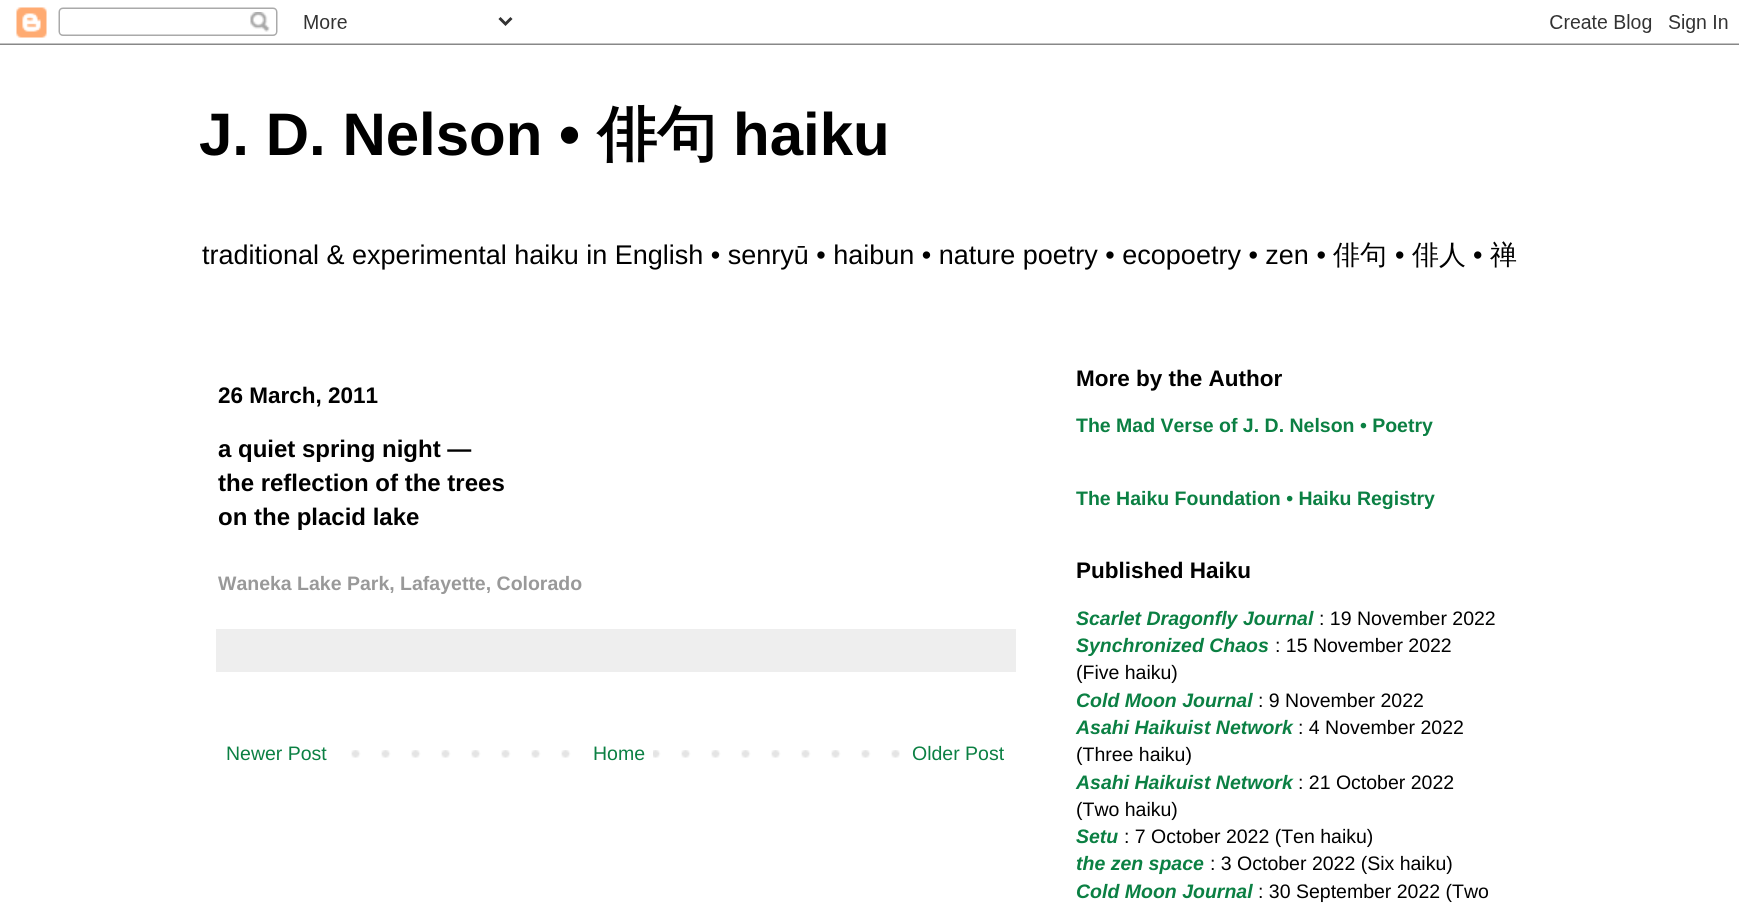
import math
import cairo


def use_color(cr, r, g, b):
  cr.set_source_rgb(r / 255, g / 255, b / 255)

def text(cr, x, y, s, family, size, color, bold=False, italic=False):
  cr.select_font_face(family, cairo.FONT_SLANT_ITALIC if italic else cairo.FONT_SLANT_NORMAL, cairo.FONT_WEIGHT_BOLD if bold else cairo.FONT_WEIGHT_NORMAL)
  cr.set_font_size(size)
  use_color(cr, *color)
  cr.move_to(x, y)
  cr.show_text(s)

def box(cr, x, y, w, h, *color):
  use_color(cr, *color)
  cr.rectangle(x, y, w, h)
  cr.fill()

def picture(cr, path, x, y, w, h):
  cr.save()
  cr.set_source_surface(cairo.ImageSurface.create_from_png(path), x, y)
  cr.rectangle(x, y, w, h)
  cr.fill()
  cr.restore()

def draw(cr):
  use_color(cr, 255, 255, 255)
  cr.paint()
  picture(cr, "img_01.png", 0, 7, 1739, 38)
  box(cr, 216, 629, 800, 43, 238, 238, 238)
  picture(cr, "img_02.png", 351, 750, 549, 8)
  box(cr, 591, 750, 62, 8, 255, 255, 255)
  text(cr, 199, 155, "J. D. Nelson •", "Liberation Sans", 60, (0, 0, 0), bold=True)
  text(cr, 597, 155, "俳句", "WenQuanYi Zen Hei", 60, (0, 0, 0), bold=True)
  text(cr, 733, 155, "haiku", "Liberation Sans", 60, (0, 0, 0), bold=True)
  text(cr, 202, 264, "traditional & experimental haiku in English • senryū • haibun • nature poetry • ecopoetry • zen •", "Liberation Sans", 27, (0, 0, 0))
  text(cr, 1333, 264, "俳句", "WenQuanYi Zen Hei Medium", 27, (0, 0, 0))
  text(cr, 1395, 264, "•", "Liberation Sans", 27, (0, 0, 0))
  text(cr, 1412, 264, "俳人", "WenQuanYi Zen Hei Medium", 27, (0, 0, 0))
  text(cr, 1473, 264, "•", "Liberation Sans", 27, (0, 0, 0))
  text(cr, 1490, 264, "禅", "WenQuanYi Zen Hei Medium", 27, (0, 0, 0))
  text(cr, 218, 403, "26 March, 2011", "Liberation Sans", 22.5, (0, 0, 0), bold=True)
  text(cr, 218, 457, "a quiet spring night —", "Liberation Sans", 24, (0, 0, 0), bold=True)
  text(cr, 218, 491, "the reflection of the trees", "Liberation Sans", 24, (0, 0, 0), bold=True)
  text(cr, 218, 525, "on the placid lake", "Liberation Sans", 24, (0, 0, 0), bold=True)
  text(cr, 218, 590, "Waneka Lake Park, Lafayette, Colorado", "Liberation Sans", 19.5, (153, 153, 153), bold=True)
  text(cr, 226, 760, "Newer Post", "Liberation Sans", 19.5, (11, 128, 67))
  text(cr, 593, 760, "Home", "Liberation Sans", 19.5, (11, 128, 67))
  text(cr, 912, 760, "Older Post", "Liberation Sans", 19.5, (11, 128, 67))
  text(cr, 1076, 386, "More by the Author", "Liberation Sans", 22.5, (0, 0, 0), bold=True)
  text(cr, 1076, 432, "The Mad Verse of J. D. Nelson • Poetry", "Liberation Sans", 19.5, (11, 128, 67), bold=True)
  text(cr, 1076, 505, "The Haiku Foundation • Haiku Registry", "Liberation Sans", 19.5, (11, 128, 67), bold=True)
  text(cr, 1076, 578, "Published Haiku", "Liberation Sans", 22.5, (0, 0, 0), bold=True)
  text(cr, 1076, 625, "Scarlet Dragonfly Journal", "Liberation Sans", 19.5, (11, 128, 67), bold=True, italic=True)
  text(cr, 1319, 625, ": 19 November 2022", "Liberation Sans", 19.5, (0, 0, 0))
  text(cr, 1076, 652, "Synchronized Chaos", "Liberation Sans", 19.5, (11, 128, 67), bold=True, italic=True)
  text(cr, 1275, 652, ": 15 November 2022", "Liberation Sans", 19.5, (0, 0, 0))
  text(cr, 1076, 679, "(Five haiku)", "Liberation Sans", 19.5, (0, 0, 0))
  text(cr, 1076, 707, "Cold Moon Journal", "Liberation Sans", 19.5, (11, 128, 67), bold=True, italic=True)
  text(cr, 1258, 707, ": 9 November 2022", "Liberation Sans", 19.5, (0, 0, 0))
  text(cr, 1076, 734, "Asahi Haikuist Network", "Liberation Sans", 19.5, (11, 128, 67), bold=True, italic=True)
  text(cr, 1298, 734, ": 4 November 2022", "Liberation Sans", 19.5, (0, 0, 0))
  text(cr, 1076, 761, "(Three haiku)", "Liberation Sans", 19.5, (0, 0, 0))
  text(cr, 1076, 789, "Asahi Haikuist Network", "Liberation Sans", 19.5, (11, 128, 67), bold=True, italic=True)
  text(cr, 1298, 789, ": 21 October 2022", "Liberation Sans", 19.5, (0, 0, 0))
  text(cr, 1076, 816, "(Two haiku)", "Liberation Sans", 19.5, (0, 0, 0))
  text(cr, 1076, 843, "Setu", "Liberation Sans", 19.5, (11, 128, 67), bold=True, italic=True)
  text(cr, 1124, 843, ": 7 October 2022 (Ten haiku)", "Liberation Sans", 19.5, (0, 0, 0))
  text(cr, 1076, 870, "the zen space", "Liberation Sans", 19.5, (11, 128, 67), bold=True, italic=True)
  text(cr, 1210, 870, ": 3 October 2022 (Six haiku)", "Liberation Sans", 19.5, (0, 0, 0))
  text(cr, 1076, 898, "Cold Moon Journal", "Liberation Sans", 19.5, (11, 128, 67), bold=True, italic=True)
  text(cr, 1258, 898, ": 30 September 2022 (Two", "Liberation Sans", 19.5, (0, 0, 0))


surface = cairo.ImageSurface(cairo.FORMAT_RGB24, 1739, 921)
cr = cairo.Context(surface)
options = cairo.FontOptions()
options.set_hint_metrics(cairo.HINT_METRICS_OFF)
options.set_hint_style(cairo.HINT_STYLE_NONE)
cr.set_font_options(options)
cr.set_miter_limit(4)
draw(cr)
surface.write_to_png("out.png")
